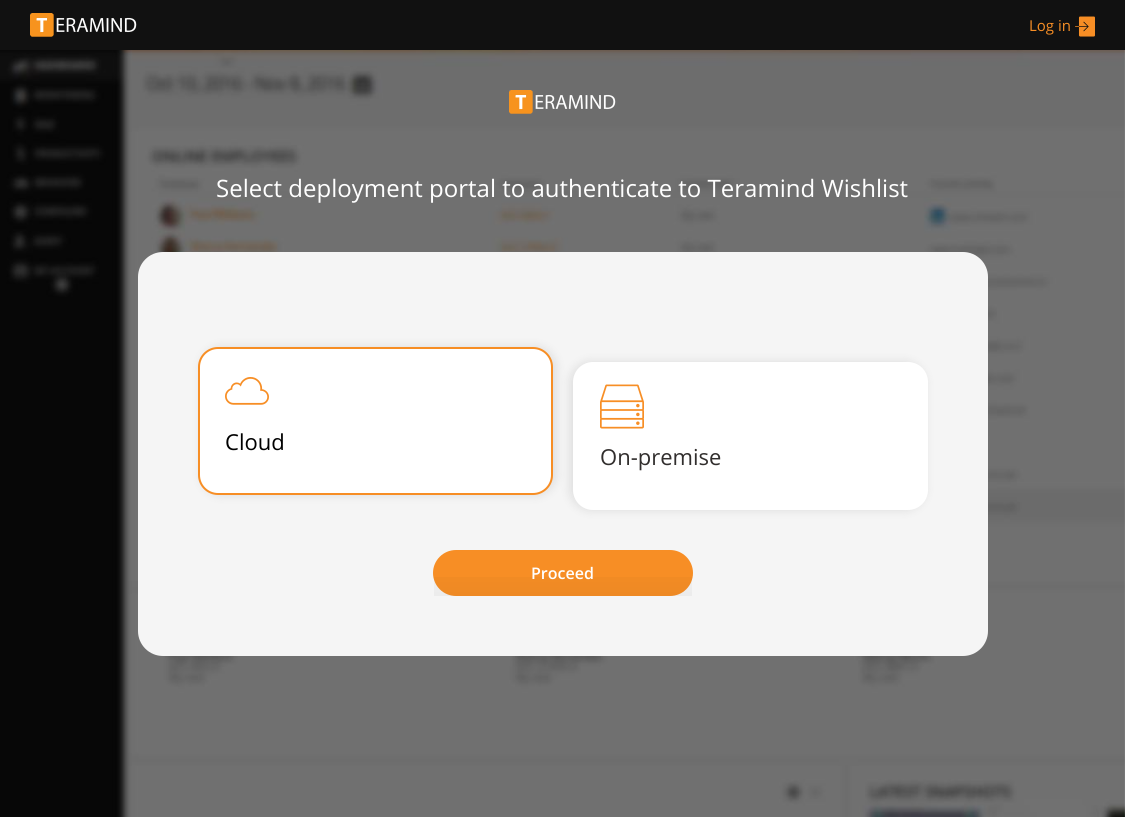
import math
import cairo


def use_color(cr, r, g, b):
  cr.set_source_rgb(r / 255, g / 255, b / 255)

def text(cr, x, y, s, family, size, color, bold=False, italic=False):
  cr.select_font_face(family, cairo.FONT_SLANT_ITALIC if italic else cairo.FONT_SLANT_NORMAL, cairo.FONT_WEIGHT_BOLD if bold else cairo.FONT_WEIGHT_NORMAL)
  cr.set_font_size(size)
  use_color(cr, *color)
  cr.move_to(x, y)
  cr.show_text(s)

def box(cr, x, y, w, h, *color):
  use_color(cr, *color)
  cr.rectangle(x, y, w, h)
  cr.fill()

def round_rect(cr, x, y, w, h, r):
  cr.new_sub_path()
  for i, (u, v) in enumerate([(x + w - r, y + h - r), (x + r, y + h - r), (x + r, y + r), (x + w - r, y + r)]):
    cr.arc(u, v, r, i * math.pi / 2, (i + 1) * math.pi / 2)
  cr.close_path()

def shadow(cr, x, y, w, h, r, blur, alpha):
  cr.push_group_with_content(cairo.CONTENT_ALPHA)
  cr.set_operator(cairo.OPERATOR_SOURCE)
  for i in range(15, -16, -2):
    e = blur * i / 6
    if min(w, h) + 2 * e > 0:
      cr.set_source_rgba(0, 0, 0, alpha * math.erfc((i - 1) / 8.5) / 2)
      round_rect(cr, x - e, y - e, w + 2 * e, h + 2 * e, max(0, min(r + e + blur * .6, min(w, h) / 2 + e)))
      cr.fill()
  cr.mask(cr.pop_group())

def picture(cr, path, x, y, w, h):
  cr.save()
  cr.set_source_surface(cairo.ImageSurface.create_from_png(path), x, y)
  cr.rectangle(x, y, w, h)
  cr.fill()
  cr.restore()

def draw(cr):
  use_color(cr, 255, 255, 255)
  cr.paint()
  box(cr, 0, 0, 1125, 50, 17, 17, 17)
  picture(cr, "img_01.png", 30, 13, 107, 24)
  picture(cr, "img_02.png", 1075, 16, 20, 21)
  picture(cr, "img_03.png", 0, 50, 1125, 767)
  picture(cr, "img_04.png", 509, 90, 107, 24)
  use_color(cr, 245, 245, 245)
  round_rect(cr, 138, 252, 850, 404, 25)
  cr.fill()
  use_color(cr, 0, 0, 0)
  shadow(cr, 201, 347, 355, 148, 20, 5, 0.1)
  use_color(cr, 255, 255, 255)
  round_rect(cr, 199, 348, 353, 146, 19)
  cr.fill_preserve()
  use_color(cr, 247, 142, 37)
  cr.stroke()
  picture(cr, "img_05.png", 225, 377, 44, 28)
  use_color(cr, 0, 0, 0)
  shadow(cr, 570, 362, 355, 148, 20, 5, 0.1)
  use_color(cr, 255, 255, 255)
  round_rect(cr, 573, 362, 355, 148, 20)
  cr.fill()
  picture(cr, "img_06.png", 600, 384, 44, 45)
  use_color(cr, 247, 142, 37)
  round_rect(cr, 433, 550, 260, 46, 23)
  cr.fill()
  gradient = cairo.LinearGradient(563, 550, 563, 800)
  gradient.add_color_stop_rgba(0, 0, 0, 0, 0)
  gradient.add_color_stop_rgba(1, 0, 0, 0, 0.2)
  cr.set_source(gradient)
  cr.rectangle(434, 577, 258, 19)
  cr.fill()
  text(cr, 1029, 31, "Log in", "Open Sans", 15, (247, 142, 37))
  text(cr, 216, 197, "Select deployment portal to authenticate to Teramind Wishlist", "Open Sans", 24, (255, 255, 255))
  text(cr, 225, 450, "Cloud", "Open Sans", 22, (0, 0, 0))
  text(cr, 600, 465, "On-premise", "Open Sans", 22, (49, 46, 45))
  text(cr, 531, 579, "Proceed", "Open Sans SemiBold", 16, (255, 255, 255))


surface = cairo.ImageSurface(cairo.FORMAT_RGB24, 1125, 817)
cr = cairo.Context(surface)
options = cairo.FontOptions()
options.set_hint_metrics(cairo.HINT_METRICS_OFF)
options.set_hint_style(cairo.HINT_STYLE_NONE)
cr.set_font_options(options)
cr.set_miter_limit(4)
draw(cr)
surface.write_to_png("out.png")
